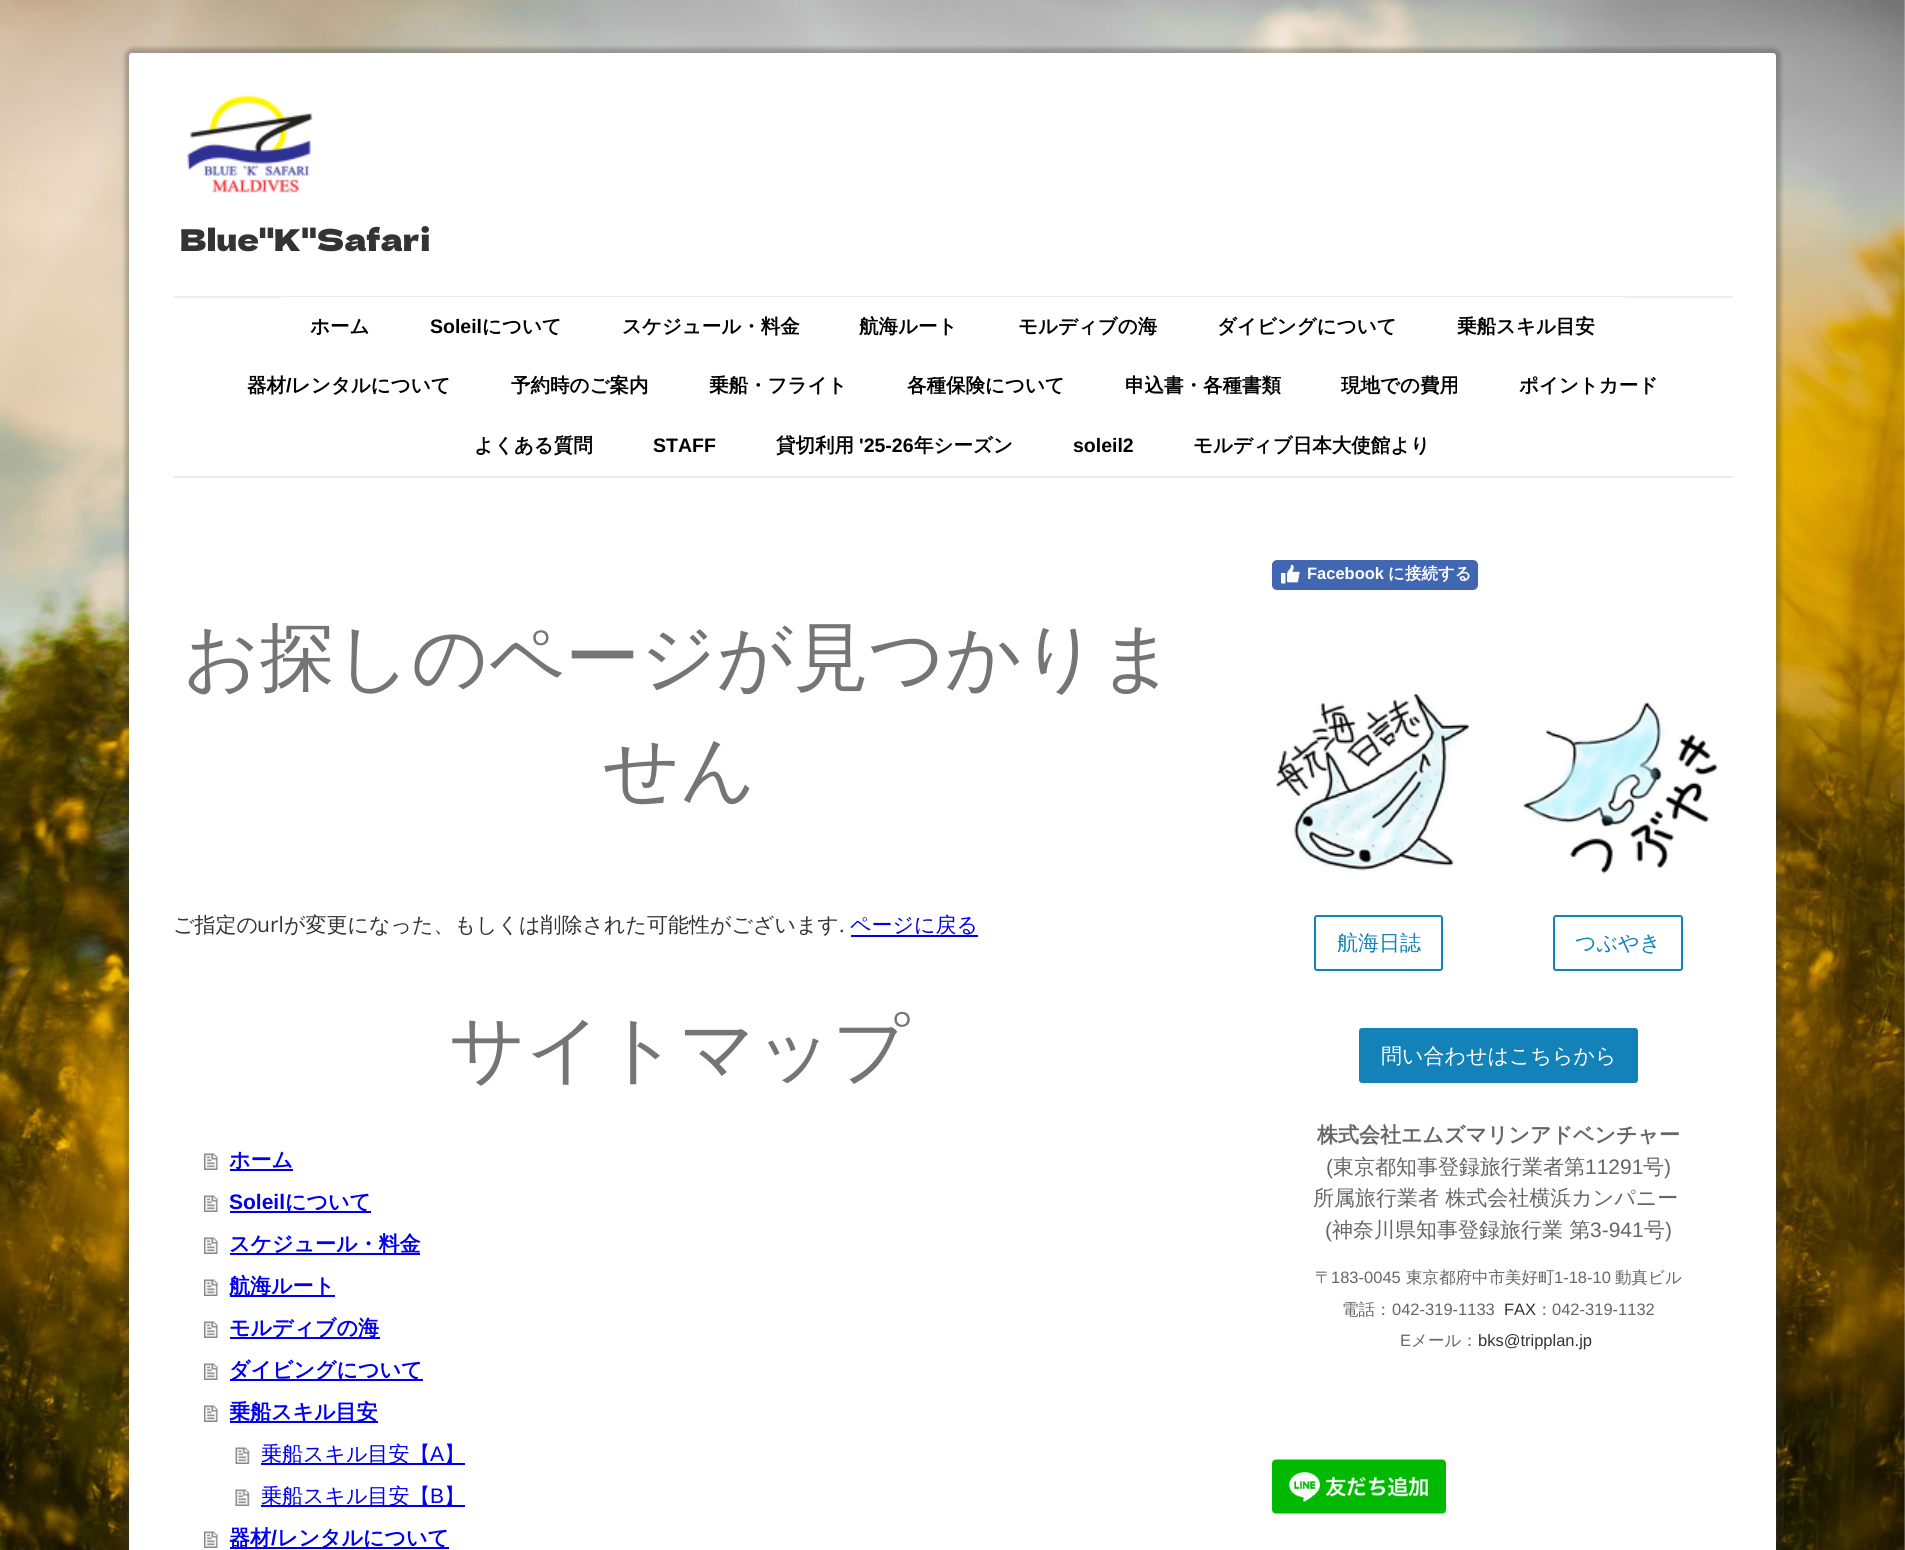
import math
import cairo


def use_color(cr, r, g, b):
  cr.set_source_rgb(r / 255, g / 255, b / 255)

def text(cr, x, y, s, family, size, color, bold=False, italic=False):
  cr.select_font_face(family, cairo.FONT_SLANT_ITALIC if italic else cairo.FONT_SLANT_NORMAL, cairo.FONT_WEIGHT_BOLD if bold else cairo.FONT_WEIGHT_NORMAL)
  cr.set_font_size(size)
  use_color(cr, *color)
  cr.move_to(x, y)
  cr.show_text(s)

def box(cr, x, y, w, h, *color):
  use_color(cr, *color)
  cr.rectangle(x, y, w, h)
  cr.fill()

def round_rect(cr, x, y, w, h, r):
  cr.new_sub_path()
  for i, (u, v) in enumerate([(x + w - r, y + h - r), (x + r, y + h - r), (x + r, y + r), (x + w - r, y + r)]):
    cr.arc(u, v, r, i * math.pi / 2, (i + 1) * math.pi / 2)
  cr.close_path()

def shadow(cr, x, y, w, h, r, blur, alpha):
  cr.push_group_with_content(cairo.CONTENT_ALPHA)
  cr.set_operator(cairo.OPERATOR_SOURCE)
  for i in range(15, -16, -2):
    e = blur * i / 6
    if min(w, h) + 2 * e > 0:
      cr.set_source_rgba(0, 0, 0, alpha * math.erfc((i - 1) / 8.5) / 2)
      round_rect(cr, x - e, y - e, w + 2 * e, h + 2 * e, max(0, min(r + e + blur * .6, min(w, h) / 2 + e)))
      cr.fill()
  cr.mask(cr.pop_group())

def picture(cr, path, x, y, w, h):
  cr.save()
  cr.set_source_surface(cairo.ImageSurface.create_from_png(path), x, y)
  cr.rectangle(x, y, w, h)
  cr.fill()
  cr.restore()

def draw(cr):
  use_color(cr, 255, 255, 255)
  cr.paint()
  picture(cr, "img_01.png", 0, 0, 1905, 1550)
  use_color(cr, 51, 51, 51)
  shadow(cr, 125, 48, 1656, 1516, 8, 2, 0.3)
  use_color(cr, 255, 255, 255)
  round_rect(cr, 129, 53, 1647, 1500, 3)
  cr.fill()
  picture(cr, "img_02.png", 187, 95, 126, 98)
  box(cr, 173, 296, 1560, 2, 237, 237, 237)
  box(cr, 173, 476, 1560, 2, 237, 237, 237)
  box(cr, 281, 297, 1344, 1, 255, 255, 255)
  box(cr, 851, 935, 127, 2, 0, 0, 238)
  picture(cr, "img_03.png", 204, 1153, 14, 17)
  box(cr, 230, 1169, 63, 2, 0, 0, 238)
  picture(cr, "img_03.png", 204, 1195, 14, 17)
  box(cr, 230, 1211, 141, 2, 0, 0, 238)
  picture(cr, "img_03.png", 204, 1237, 14, 17)
  box(cr, 230, 1253, 190, 2, 0, 0, 238)
  picture(cr, "img_03.png", 204, 1279, 14, 17)
  box(cr, 230, 1295, 105, 2, 0, 0, 238)
  picture(cr, "img_03.png", 204, 1321, 14, 17)
  box(cr, 230, 1337, 150, 2, 0, 0, 238)
  picture(cr, "img_03.png", 204, 1363, 14, 17)
  box(cr, 230, 1379, 193, 2, 0, 0, 238)
  picture(cr, "img_03.png", 204, 1405, 14, 17)
  box(cr, 230, 1421, 148, 2, 0, 0, 238)
  picture(cr, "img_04.png", 235, 1447, 15, 17)
  box(cr, 261, 1463, 204, 2, 0, 0, 238)
  picture(cr, "img_04.png", 235, 1489, 15, 17)
  box(cr, 261, 1505, 204, 2, 0, 0, 238)
  picture(cr, "img_03.png", 204, 1531, 14, 17)
  box(cr, 230, 1547, 219, 2, 0, 0, 238)
  use_color(cr, 66, 103, 178)
  round_rect(cr, 1273, 561, 204, 28, 4)
  cr.fill_preserve()
  cr.stroke()
  picture(cr, "img_05.png", 1281, 564, 19, 20)
  picture(cr, "img_06.png", 1276, 694, 194, 178)
  round_rect(cr, 1315, 916, 127, 54, 2)
  use_color(cr, 19, 130, 185)
  cr.stroke()
  picture(cr, "img_07.png", 1523, 701, 195, 173)
  round_rect(cr, 1554, 916, 128, 54, 2)
  cr.stroke()
  round_rect(cr, 1360, 1029, 277, 53, 2)
  cr.fill_preserve()
  cr.stroke()
  picture(cr, "img_08.png", 1272, 1459, 174, 55)
  text(cr, 180, 251, "Blue\"K\"Safari", "Dela Gothic One", 30, (51, 51, 51))
  text(cr, 310, 333, "ホーム", "WenQuanYi Zen Hei", 19.5, (0, 0, 0), bold=True)
  text(cr, 430, 333, "Soleil", "Liberation Sans", 19.5, (0, 0, 0), bold=True)
  text(cr, 482, 333, "について", "WenQuanYi Zen Hei", 19.5, (0, 0, 0), bold=True)
  text(cr, 622, 333, "スケジュール・料金", "WenQuanYi Zen Hei", 19.5, (0, 0, 0), bold=True)
  text(cr, 859, 333, "航海ルート", "WenQuanYi Zen Hei", 19.5, (0, 0, 0), bold=True)
  text(cr, 1018, 333, "モルディブの海", "WenQuanYi Zen Hei", 19.5, (0, 0, 0), bold=True)
  text(cr, 1217, 333, "ダイビングについて", "WenQuanYi Zen Hei", 19.5, (0, 0, 0), bold=True)
  text(cr, 1457, 333, "乗船スキル目安", "WenQuanYi Zen Hei", 19.5, (0, 0, 0), bold=True)
  text(cr, 247, 392, "器材", "WenQuanYi Zen Hei", 19.5, (0, 0, 0), bold=True)
  text(cr, 286, 392, "/", "Liberation Sans", 19.5, (0, 0, 0), bold=True)
  text(cr, 291, 392, "レンタルについて", "WenQuanYi Zen Hei", 19.5, (0, 0, 0), bold=True)
  text(cr, 511, 392, "予約時のご案内", "WenQuanYi Zen Hei", 19.5, (0, 0, 0), bold=True)
  text(cr, 709, 392, "乗船・フライト", "WenQuanYi Zen Hei", 19.5, (0, 0, 0), bold=True)
  text(cr, 907, 392, "各種保険について", "WenQuanYi Zen Hei", 19.5, (0, 0, 0), bold=True)
  text(cr, 1125, 392, "申込書・各種書類", "WenQuanYi Zen Hei", 19.5, (0, 0, 0), bold=True)
  text(cr, 1341, 392, "現地での費用", "WenQuanYi Zen Hei", 19.5, (0, 0, 0), bold=True)
  text(cr, 1519, 392, "ポイントカード", "WenQuanYi Zen Hei", 19.5, (0, 0, 0), bold=True)
  text(cr, 474, 452, "よくある質問", "WenQuanYi Zen Hei", 19.5, (0, 0, 0), bold=True)
  text(cr, 653, 452, "STAFF", "Liberation Sans", 19.5, (0, 0, 0), bold=True)
  text(cr, 776, 452, "貸切利用", "WenQuanYi Zen Hei", 19.5, (0, 0, 0), bold=True)
  text(cr, 859, 452, "'25-26", "Liberation Sans", 19.5, (0, 0, 0), bold=True)
  text(cr, 914, 452, "年シーズン", "WenQuanYi Zen Hei", 19.5, (0, 0, 0), bold=True)
  text(cr, 1073, 452, "soleil2", "Liberation Sans", 19.5, (0, 0, 0), bold=True)
  text(cr, 1193, 452, "モルディブ日本大使館より", "WenQuanYi Zen Hei", 19.5, (0, 0, 0), bold=True)
  text(cr, 183, 683, "お探しのページが見つかりま", "WenQuanYi Zen Hei Medium", 75, (117, 117, 117))
  text(cr, 603, 795, "せん", "WenQuanYi Zen Hei Medium", 75, (117, 117, 117))
  text(cr, 173, 932, "ご指定の", "WenQuanYi Zen Hei Medium", 21, (51, 51, 51))
  text(cr, 257, 932, "url", "Open Sans", 21, (51, 51, 51))
  text(cr, 284, 932, "が変更になった、もしくは削除された可能性がございます", "WenQuanYi Zen Hei Medium", 21, (51, 51, 51))
  text(cr, 839, 932, ".", "Open Sans", 21, (51, 51, 51))
  text(cr, 850, 932, "ページに戻る", "WenQuanYi Zen Hei Medium", 21, (0, 0, 238))
  text(cr, 449, 1075, "サイトマップ", "WenQuanYi Zen Hei Medium", 75, (117, 117, 117))
  text(cr, 229, 1167, "ホーム", "WenQuanYi Zen Hei", 21, (0, 0, 238), bold=True)
  text(cr, 229, 1209, "Soleil", "Liberation Sans", 21, (0, 0, 238), bold=True)
  text(cr, 285, 1209, "について", "WenQuanYi Zen Hei", 21, (0, 0, 238), bold=True)
  text(cr, 229, 1251, "スケジュール・料金", "WenQuanYi Zen Hei", 21, (0, 0, 238), bold=True)
  text(cr, 229, 1293, "航海ルート", "WenQuanYi Zen Hei", 21, (0, 0, 238), bold=True)
  text(cr, 229, 1335, "モルディブの海", "WenQuanYi Zen Hei", 21, (0, 0, 238), bold=True)
  text(cr, 229, 1377, "ダイビングについて", "WenQuanYi Zen Hei", 21, (0, 0, 238), bold=True)
  text(cr, 229, 1419, "乗船スキル目安", "WenQuanYi Zen Hei", 21, (0, 0, 238), bold=True)
  text(cr, 261, 1461, "乗船スキル目安【", "WenQuanYi Zen Hei Medium", 21, (0, 0, 238))
  text(cr, 430, 1461, "A", "Liberation Sans", 21, (0, 0, 238))
  text(cr, 444, 1461, "】", "WenQuanYi Zen Hei Medium", 21, (0, 0, 238))
  text(cr, 261, 1503, "乗船スキル目安【", "WenQuanYi Zen Hei Medium", 21, (0, 0, 238))
  text(cr, 430, 1503, "B", "Liberation Sans", 21, (0, 0, 238))
  text(cr, 444, 1503, "】", "WenQuanYi Zen Hei Medium", 21, (0, 0, 238))
  text(cr, 229, 1545, "器材", "WenQuanYi Zen Hei", 21, (0, 0, 238), bold=True)
  text(cr, 271, 1545, "/", "Liberation Sans", 21, (0, 0, 238), bold=True)
  text(cr, 277, 1545, "レンタルについて", "WenQuanYi Zen Hei", 21, (0, 0, 238), bold=True)
  text(cr, 1307, 579, "Facebook", "Liberation Sans", 16.5, (255, 255, 255), bold=True)
  text(cr, 1388, 579, "に接続する", "WenQuanYi Zen Hei", 16.5, (255, 255, 255), bold=True)
  text(cr, 1337, 950, "航海日誌", "WenQuanYi Zen Hei Medium", 21, (19, 130, 185))
  text(cr, 1575, 950, "つぶやき", "WenQuanYi Zen Hei Medium", 21, (19, 130, 185))
  text(cr, 1381, 1063, "問い合わせはこちらから", "WenQuanYi Zen Hei Medium", 21, (255, 255, 255))
  text(cr, 1317, 1142, "株式会社エムズマリンアドベンチャー", "WenQuanYi Zen Hei", 21, (102, 102, 102), bold=True)
  text(cr, 1326, 1174, "(", "Liberation Sans", 21, (102, 102, 102))
  text(cr, 1333, 1174, "東京都知事登録旅行業者第", "WenQuanYi Zen Hei Medium", 21, (102, 102, 102))
  text(cr, 1585, 1174, "11291", "Liberation Sans", 21, (102, 102, 102))
  text(cr, 1643, 1174, "号", "WenQuanYi Zen Hei Medium", 21, (102, 102, 102))
  text(cr, 1664, 1174, ")", "Liberation Sans", 21, (102, 102, 102))
  text(cr, 1313, 1205, "所属旅行業者 株式会社横浜カンパニー", "WenQuanYi Zen Hei Medium", 21, (102, 102, 102))
  text(cr, 1325, 1237, "(", "Liberation Sans", 21, (102, 102, 102))
  text(cr, 1332, 1237, "神奈川県知事登録旅行業 第", "WenQuanYi Zen Hei Medium", 21, (102, 102, 102))
  text(cr, 1590, 1237, "3-941", "Liberation Sans", 21, (102, 102, 102))
  text(cr, 1644, 1237, "号", "WenQuanYi Zen Hei Medium", 21, (102, 102, 102))
  text(cr, 1665, 1237, ")", "Liberation Sans", 21, (102, 102, 102))
  text(cr, 1315, 1283, "〒", "WenQuanYi Zen Hei Medium", 16.5, (102, 102, 102))
  text(cr, 1331, 1283, "183-0045", "Liberation Sans", 16.5, (102, 102, 102))
  text(cr, 1406, 1283, "東京都府中市美好町", "WenQuanYi Zen Hei Medium", 16.5, (102, 102, 102))
  text(cr, 1554, 1283, "1-18-10", "Liberation Sans", 16.5, (102, 102, 102))
  text(cr, 1615, 1283, "動真ビル", "WenQuanYi Zen Hei Medium", 16.5, (102, 102, 102))
  text(cr, 1342, 1315, "電話：", "WenQuanYi Zen Hei Medium", 16.5, (102, 102, 102))
  text(cr, 1392, 1315, "042-319-1133", "Liberation Sans", 16.5, (102, 102, 102))
  text(cr, 1504, 1315, "FAX", "Liberation Sans", 16.5, (51, 51, 51))
  text(cr, 1536, 1315, "：", "WenQuanYi Zen Hei Medium", 16.5, (102, 102, 102))
  text(cr, 1552, 1315, "042-319-1132", "Liberation Sans", 16.5, (102, 102, 102))
  text(cr, 1400, 1346, "E", "Liberation Sans", 16.5, (102, 102, 102))
  text(cr, 1411, 1346, "メール：", "WenQuanYi Zen Hei Medium", 16.5, (102, 102, 102))
  text(cr, 1478, 1346, "bks@tripplan.jp", "Liberation Sans", 16.5, (51, 51, 51))


surface = cairo.ImageSurface(cairo.FORMAT_RGB24, 1905, 1550)
cr = cairo.Context(surface)
options = cairo.FontOptions()
options.set_hint_metrics(cairo.HINT_METRICS_OFF)
options.set_hint_style(cairo.HINT_STYLE_NONE)
cr.set_font_options(options)
cr.set_miter_limit(4)
draw(cr)
surface.write_to_png("out.png")
